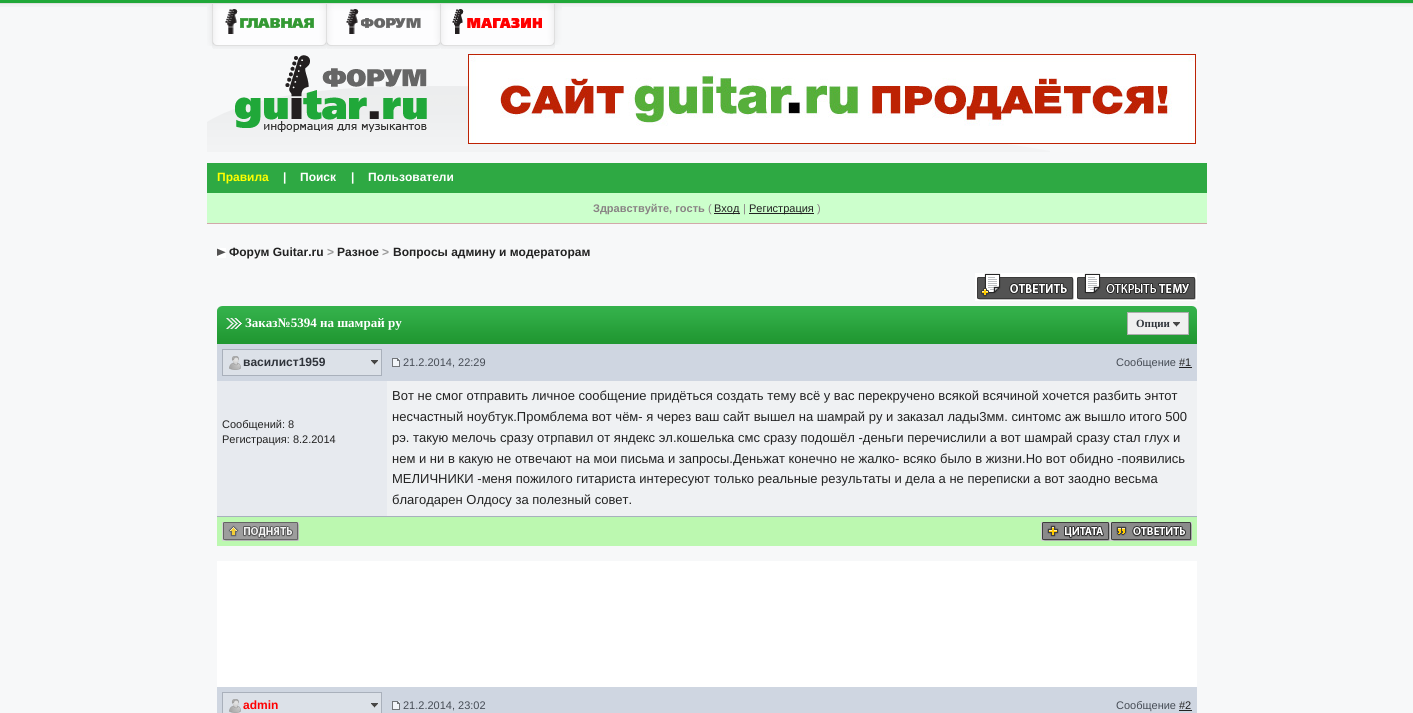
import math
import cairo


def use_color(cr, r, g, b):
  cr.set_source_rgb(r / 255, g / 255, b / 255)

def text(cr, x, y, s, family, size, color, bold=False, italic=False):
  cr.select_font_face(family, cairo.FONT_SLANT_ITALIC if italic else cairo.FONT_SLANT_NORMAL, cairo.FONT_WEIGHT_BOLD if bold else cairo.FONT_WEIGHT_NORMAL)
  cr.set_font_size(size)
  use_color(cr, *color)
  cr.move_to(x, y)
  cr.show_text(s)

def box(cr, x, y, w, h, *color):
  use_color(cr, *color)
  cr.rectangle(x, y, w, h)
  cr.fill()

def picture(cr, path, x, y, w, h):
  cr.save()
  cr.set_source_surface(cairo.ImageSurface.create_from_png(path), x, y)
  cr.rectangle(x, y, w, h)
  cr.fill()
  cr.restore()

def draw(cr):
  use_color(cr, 247, 248, 249)
  cr.paint()
  picture(cr, "img_01.png", 0, 0, 1413, 7)
  picture(cr, "img_02.png", 207, 86, 843, 66)
  picture(cr, "img_03.png", 207, 4, 5, 42)
  picture(cr, "img_04.png", 212, 4, 1, 44)
  picture(cr, "img_05.png", 213, 4, 113, 45)
  picture(cr, "img_06.png", 225, 9, 89, 25)
  picture(cr, "img_04.png", 326, 4, 1, 44)
  picture(cr, "img_05.png", 327, 4, 113, 45)
  picture(cr, "img_07.png", 346, 9, 75, 25)
  picture(cr, "img_04.png", 440, 4, 1, 44)
  picture(cr, "img_05.png", 441, 4, 113, 45)
  picture(cr, "img_08.png", 452, 9, 90, 25)
  picture(cr, "img_04.png", 554, 4, 1, 44)
  picture(cr, "img_09.png", 555, 4, 7, 41)
  picture(cr, "img_10.png", 235, 55, 192, 77)
  picture(cr, "img_11.png", 468, 54, 728, 90)
  box(cr, 207, 163, 1000, 30, 46, 169, 67)
  box(cr, 207, 193, 1000, 30, 204, 255, 204)
  box(cr, 207, 223, 1000, 1, 209, 169, 169)
  box(cr, 714, 213, 26, 1, 34, 34, 34)
  box(cr, 749, 213, 65, 1, 34, 34, 34)
  picture(cr, "img_12.png", 217, 248, 9, 10)
  picture(cr, "img_13.png", 975, 273, 100, 28)
  picture(cr, "img_14.png", 1075, 273, 122, 28)
  box(cr, 217, 561, 980, 126, 255, 255, 255)
  picture(cr, "img_15.png", 217, 306, 980, 38)
  picture(cr, "img_16.png", 217, 306, 25, 23)
  picture(cr, "img_17.png", 1192, 306, 5, 5)
  use_color(cr, 240, 240, 240)
  cr.rectangle(1127.5, 312.5, 61, 22)
  cr.fill_preserve()
  use_color(cr, 173, 173, 173)
  cr.set_line_width(1)
  cr.stroke()
  picture(cr, "img_18.png", 1173, 322, 7, 5)
  box(cr, 217, 344, 980, 37, 207, 214, 225)
  box(cr, 223, 350, 158, 25, 220, 225, 232)
  picture(cr, "img_19.png", 371, 360, 7, 5)
  cr.rectangle(222.5, 349.5, 159, 26)
  use_color(cr, 169, 176, 187)
  cr.stroke()
  picture(cr, "img_20.png", 229, 356, 12, 14)
  picture(cr, "img_21.png", 392, 358, 8, 9)
  box(cr, 1179, 367, 13, 1, 34, 34, 34)
  box(cr, 217, 381, 170, 135, 231, 234, 239)
  box(cr, 387, 381, 810, 135, 239, 241, 243)
  box(cr, 217, 517, 980, 29, 188, 248, 176)
  box(cr, 217, 516, 980, 1, 168, 177, 189)
  picture(cr, "img_22.png", 222, 522, 77, 19)
  picture(cr, "img_23.png", 1041, 522, 69, 19)
  picture(cr, "img_24.png", 1110, 522, 82, 19)
  box(cr, 217, 687, 980, 26, 207, 214, 225)
  box(cr, 223, 693, 158, 20, 220, 225, 232)
  picture(cr, "img_19.png", 371, 703, 7, 5)
  cr.rectangle(222.5, 692.5, 159, 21)
  use_color(cr, 169, 176, 187)
  cr.stroke()
  picture(cr, "img_20.png", 229, 699, 12, 14)
  picture(cr, "img_21.png", 392, 701, 8, 9)
  box(cr, 1179, 710, 13, 1, 34, 34, 34)
  text(cr, 217, 181, "Правила", "Liberation Sans", 12, (255, 255, 0), bold=True)
  text(cr, 283, 181, "|", "Liberation Sans", 12, (255, 255, 255), bold=True)
  text(cr, 300, 181, "Поиск", "Liberation Sans", 12, (255, 255, 255), bold=True)
  text(cr, 351, 181, "|", "Liberation Sans", 12, (255, 255, 255), bold=True)
  text(cr, 368, 181, "Пользователи", "Liberation Sans", 12, (255, 255, 255), bold=True)
  text(cr, 593, 212, "Здравствуйте, гость", "Liberation Sans", 11, (137, 130, 132), bold=True)
  text(cr, 708, 212, "(", "Liberation Sans", 11, (137, 130, 132))
  text(cr, 714, 212, "Вход", "Liberation Sans", 11, (34, 34, 34))
  text(cr, 743, 212, "|", "Liberation Sans", 11, (137, 130, 132))
  text(cr, 749, 212, "Регистрация", "Liberation Sans", 11, (34, 34, 34))
  text(cr, 817, 212, ")", "Liberation Sans", 11, (137, 130, 132))
  text(cr, 229, 256, "Форум Guitar.ru", "Liberation Sans", 12, (34, 34, 34), bold=True)
  text(cr, 327, 256, ">", "Liberation Sans", 12, (153, 153, 153), bold=True)
  text(cr, 337, 256, "Разное", "Liberation Sans", 12, (34, 34, 34), bold=True)
  text(cr, 382, 256, ">", "Liberation Sans", 12, (153, 153, 153), bold=True)
  text(cr, 393, 256, "Вопросы админу и модераторам", "Liberation Sans", 12, (34, 34, 34), bold=True)
  text(cr, 245, 327, "Заказ№5394 на шамрай ру", "Liberation Serif", 13, (255, 255, 255), bold=True)
  text(cr, 1136, 327, "Опции", "Liberation Serif", 11, (48, 52, 59), bold=True)
  text(cr, 243, 366, "василист1959", "Liberation Sans", 12, (48, 52, 59), bold=True)
  text(cr, 403, 366, "21.2.2014, 22:29", "Liberation Sans", 11, (70, 76, 85))
  text(cr, 1116, 366, "Сообщение", "Liberation Sans", 11, (70, 76, 85))
  text(cr, 1179, 366, "#1", "Liberation Sans", 11, (34, 34, 34))
  text(cr, 222, 428, "Сообщений: 8", "Liberation Sans", 11, (34, 34, 34))
  text(cr, 222, 443, "Регистрация: 8.2.2014", "Liberation Sans", 11, (34, 34, 34))
  text(cr, 392, 400, "Вот не смог отправить личное сообщение придёться создать тему всё у вас перекручено всякой всячиной хочется разбить энтот", "Liberation Sans", 13, (34, 34, 34))
  text(cr, 392, 421, "несчастный ноубтук.Промблема вот чём- я через ваш сайт вышел на шамрай ру и заказал лады3мм. синтомс аж вышло итого 500", "Liberation Sans", 13, (34, 34, 34))
  text(cr, 392, 442, "рэ. такую мелочь сразу отрпавил от яндекс эл.кошелька смс сразу подошёл -деньги перечислили а вот шамрай сразу стал глух и", "Liberation Sans", 13, (34, 34, 34))
  text(cr, 392, 463, "нем и ни в какую не отвечают на мои письма и запросы.Деньжат конечно не жалко- всяко было в жизни.Но вот обидно -появились", "Liberation Sans", 13, (34, 34, 34))
  text(cr, 392, 483, "МЕЛИЧНИКИ -меня пожилого гитариста интересуют только реальные результаты и дела а не переписки а вот заодно весьма", "Liberation Sans", 13, (34, 34, 34))
  text(cr, 392, 504, "благодарен Олдосу за полезный совет.", "Liberation Sans", 13, (34, 34, 34))
  text(cr, 243, 709, "admin", "Liberation Sans", 12, (255, 0, 0), bold=True)
  text(cr, 403, 709, "21.2.2014, 23:02", "Liberation Sans", 11, (70, 76, 85))
  text(cr, 1116, 709, "Сообщение", "Liberation Sans", 11, (70, 76, 85))
  text(cr, 1179, 709, "#2", "Liberation Sans", 11, (34, 34, 34))


surface = cairo.ImageSurface(cairo.FORMAT_RGB24, 1413, 713)
cr = cairo.Context(surface)
options = cairo.FontOptions()
options.set_hint_metrics(cairo.HINT_METRICS_OFF)
options.set_hint_style(cairo.HINT_STYLE_NONE)
cr.set_font_options(options)
cr.set_miter_limit(4)
draw(cr)
surface.write_to_png("out.png")
